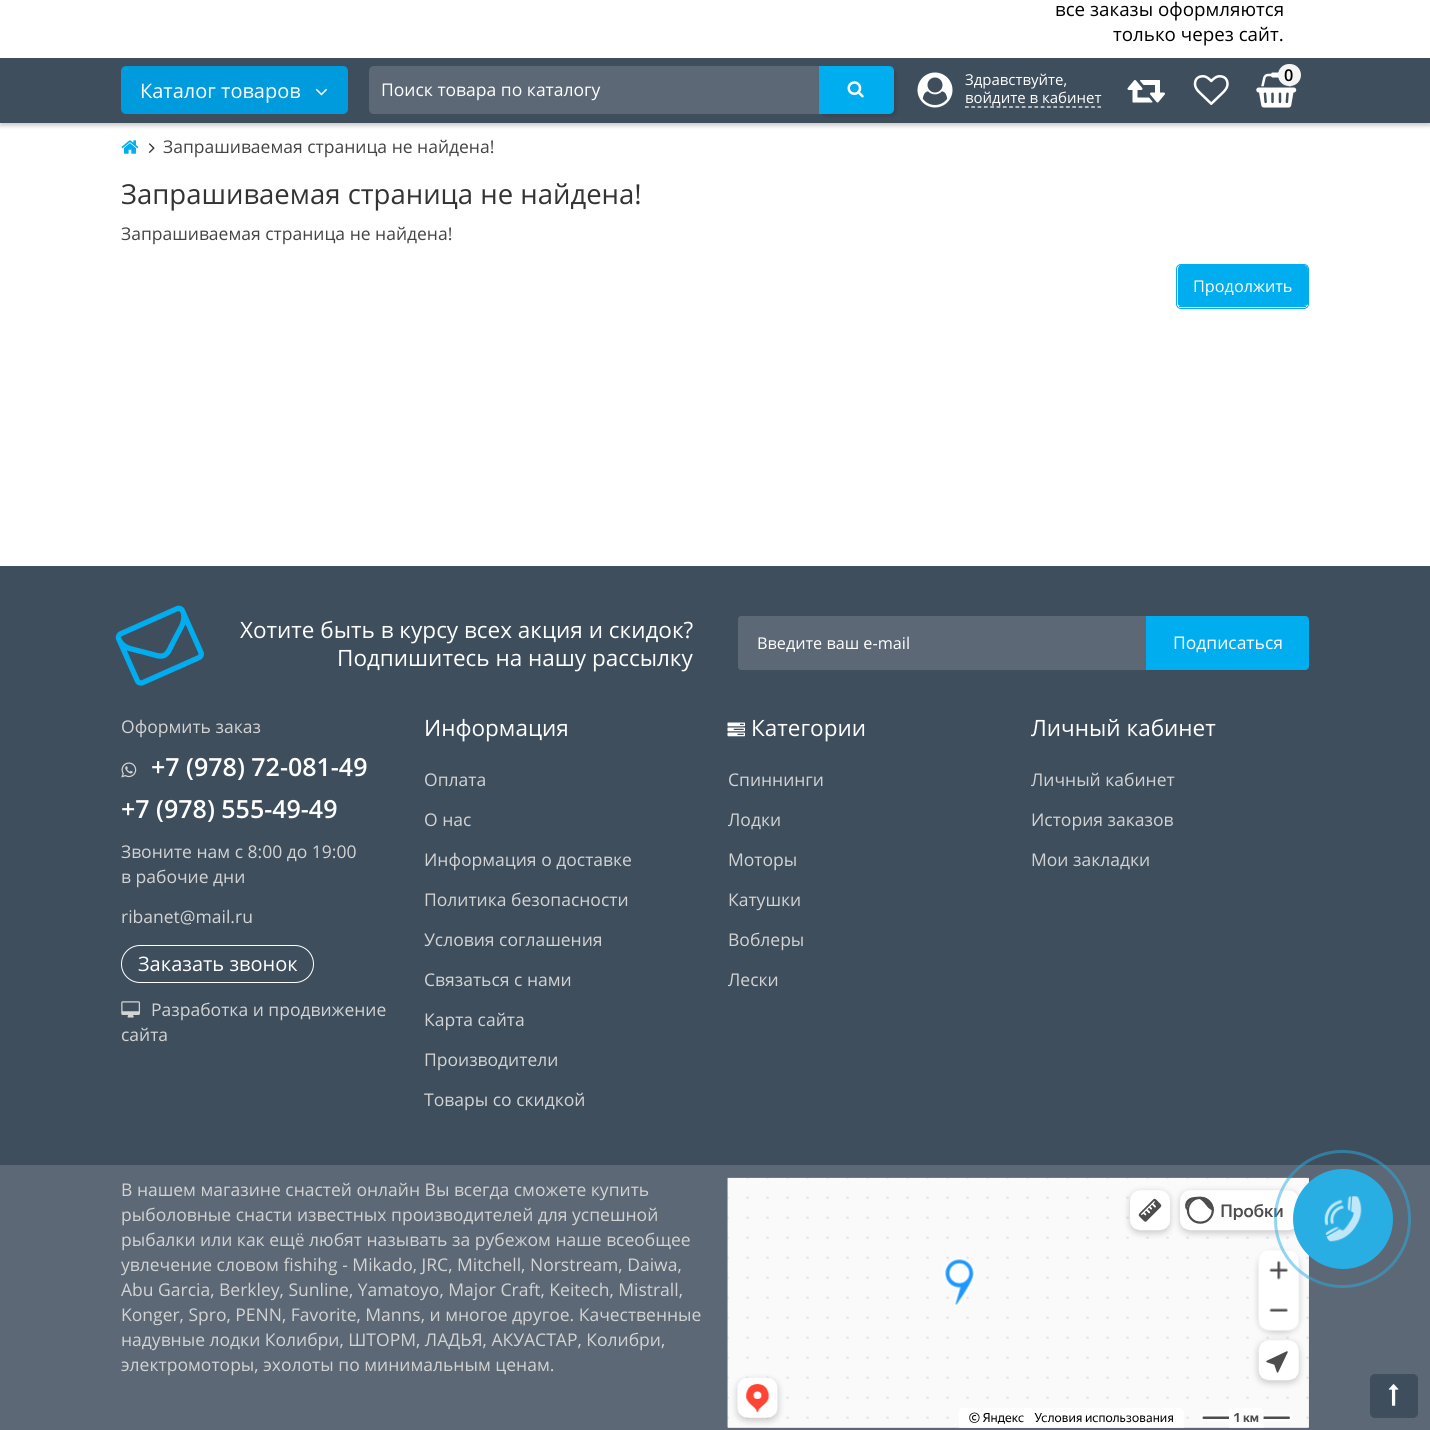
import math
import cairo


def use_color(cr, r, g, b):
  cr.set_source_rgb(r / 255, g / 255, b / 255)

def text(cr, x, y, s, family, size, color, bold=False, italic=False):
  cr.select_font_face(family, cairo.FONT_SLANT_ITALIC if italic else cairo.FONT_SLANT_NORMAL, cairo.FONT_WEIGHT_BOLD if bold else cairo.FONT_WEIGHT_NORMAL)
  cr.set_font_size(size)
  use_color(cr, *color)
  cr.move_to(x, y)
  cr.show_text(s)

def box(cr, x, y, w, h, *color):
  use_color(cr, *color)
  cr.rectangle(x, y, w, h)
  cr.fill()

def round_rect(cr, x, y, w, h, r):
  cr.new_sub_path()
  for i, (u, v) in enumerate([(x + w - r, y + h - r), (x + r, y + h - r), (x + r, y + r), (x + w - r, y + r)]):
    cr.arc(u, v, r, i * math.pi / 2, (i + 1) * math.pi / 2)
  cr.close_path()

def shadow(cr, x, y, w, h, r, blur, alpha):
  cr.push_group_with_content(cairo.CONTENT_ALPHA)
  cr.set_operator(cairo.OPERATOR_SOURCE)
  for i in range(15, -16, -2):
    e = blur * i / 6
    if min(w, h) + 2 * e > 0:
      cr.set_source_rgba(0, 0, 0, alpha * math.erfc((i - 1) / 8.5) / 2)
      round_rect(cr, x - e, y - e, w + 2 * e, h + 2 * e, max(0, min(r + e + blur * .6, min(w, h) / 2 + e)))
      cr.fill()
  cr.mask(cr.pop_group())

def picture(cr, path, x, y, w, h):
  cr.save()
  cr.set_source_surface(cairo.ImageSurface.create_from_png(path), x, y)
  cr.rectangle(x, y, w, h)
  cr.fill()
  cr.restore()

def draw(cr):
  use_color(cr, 255, 255, 255)
  cr.paint()
  use_color(cr, 0, 0, 0)
  shadow(cr, 0, 61, 1430, 65, 0, 2, 0.2)
  box(cr, 0, 58, 1430, 65, 63, 78, 93)
  use_color(cr, 0, 155, 221)
  round_rect(cr, 121, 66, 227, 48, 5)
  cr.fill()
  picture(cr, "img_01.png", 315, 88, 12, 8)
  use_color(cr, 92, 104, 117)
  cr.new_path()
  cr.move_to(374, 66)
  cr.line_to(819, 66)
  cr.line_to(819, 114)
  cr.line_to(374, 114)
  cr.curve_to(371, 114, 369, 112, 369, 109)
  cr.line_to(369, 71)
  cr.curve_to(369, 68, 371, 66, 374, 66)
  cr.close_path()
  cr.fill()
  use_color(cr, 0, 0, 0)
  shadow(cr, 821, 69, 75, 47, 5, 2.5, 0.15)
  use_color(cr, 0, 173, 239)
  cr.new_path()
  cr.move_to(819, 66)
  cr.line_to(889, 66)
  cr.curve_to(892, 66, 894, 68, 894, 71)
  cr.line_to(894, 109)
  cr.curve_to(894, 112, 892, 114, 889, 114)
  cr.line_to(819, 114)
  cr.close_path()
  cr.fill()
  picture(cr, "img_02.png", 847, 81, 17, 17)
  picture(cr, "img_03.png", 917, 72, 36, 36)
  cr.new_path()
  cr.move_to(965, 107)
  cr.line_to(1101, 107)
  use_color(cr, 255, 255, 255)
  cr.set_line_width(1.2)
  cr.set_dash([3.75, 2.56])
  cr.stroke()
  picture(cr, "img_04.png", 1127, 80, 38, 23)
  picture(cr, "img_05.png", 1193, 75, 36, 30)
  picture(cr, "img_06.png", 1256, 72, 41, 36)
  use_color(cr, 245, 245, 245)
  round_rect(cr, 1278, 64, 23, 22, 11)
  cr.fill()
  picture(cr, "img_07.png", 121, 140, 18, 14)
  picture(cr, "img_08.png", 148, 143, 7, 10)
  use_color(cr, 0, 173, 239)
  cr.new_path()
  cr.move_to(1181, 265)
  cr.line_to(1304, 265)
  cr.curve_to(1306, 265, 1308, 267, 1308, 269)
  cr.line_to(1308, 304)
  cr.curve_to(1308, 305, 1306, 306, 1304, 306)
  cr.line_to(1181, 306)
  cr.curve_to(1179, 306, 1178, 305, 1178, 304)
  cr.line_to(1178, 269)
  cr.curve_to(1178, 267, 1179, 265, 1181, 265)
  cr.close_path()
  cr.fill()
  round_rect(cr, 1176.5, 264.5, 132, 44, 4.5)
  cr.set_line_width(1)
  cr.set_dash([])
  cr.stroke()
  box(cr, 1179, 306, 127, 1, 0, 173, 239)
  box(cr, 0, 566, 1430, 599, 63, 78, 93)
  picture(cr, "img_09.png", 115, 605, 89, 81)
  use_color(cr, 92, 104, 117)
  cr.new_path()
  cr.move_to(742, 616)
  cr.line_to(1148, 616)
  cr.line_to(1148, 670)
  cr.line_to(742, 670)
  cr.curve_to(740, 670, 738, 668, 738, 666)
  cr.line_to(738, 620)
  cr.curve_to(738, 618, 740, 616, 742, 616)
  cr.close_path()
  cr.fill()
  cr.set_fill_rule(cairo.FILL_RULE_EVEN_ODD)
  cr.new_path()
  cr.move_to(741, 616)
  cr.line_to(1148, 616)
  cr.line_to(1148, 670)
  cr.line_to(741, 670)
  cr.curve_to(739, 670, 738, 668, 738, 666)
  cr.line_to(738, 620)
  cr.curve_to(738, 618, 739, 616, 741, 616)
  cr.close_path()
  cr.move_to(741, 618)
  cr.line_to(1148, 618)
  cr.line_to(1148, 669)
  cr.line_to(741, 669)
  cr.curve_to(740, 669, 739, 668, 739, 666)
  cr.line_to(739, 620)
  cr.curve_to(739, 619, 740, 618, 741, 618)
  cr.close_path()
  cr.fill()
  use_color(cr, 0, 173, 239)
  cr.new_path()
  cr.move_to(1146.5, 616.5)
  cr.line_to(1305, 616.5)
  cr.curve_to(1307, 616.5, 1308.5, 618, 1308.5, 620)
  cr.line_to(1308.5, 666)
  cr.curve_to(1308.5, 668, 1307, 669.5, 1305, 669.5)
  cr.line_to(1146.5, 669.5)
  cr.close_path()
  cr.fill_preserve()
  cr.stroke()
  picture(cr, "img_10.png", 121, 762, 16, 16)
  round_rect(cr, 121.5, 945.5, 192, 37, 18.5)
  use_color(cr, 255, 255, 255)
  cr.stroke()
  picture(cr, "img_11.png", 121, 1001, 19, 17)
  picture(cr, "img_12.png", 727, 722, 18, 15)
  box(cr, 0, 1165, 1430, 265, 92, 104, 117)
  picture(cr, "img_13.png", 727, 1177, 582, 251)
  round_rect(cr, 1275.5, 1151.5, 134, 135, 67)
  cr.set_source_rgba(0.161, 0.682, 0.89, 0.5)
  cr.set_line_width(3)
  cr.stroke()
  use_color(cr, 41, 174, 227)
  cr.arc(1343, 1219, 50, 0, 2 * math.pi)
  cr.fill()
  picture(cr, "img_14.png", 1324, 1196, 38, 46)
  use_color(cr, 63, 78, 93)
  round_rect(cr, 1370.5, 1374.5, 47, 43, 4.5)
  cr.fill_preserve()
  cr.set_line_width(1)
  cr.stroke()
  picture(cr, "img_15.png", 1388, 1384, 11, 22)
  text(cr, 1055, 16, "все заказы оформляются", "Open Sans", 18.75, (0, 0, 0))
  text(cr, 1113, 41, "только через сайт.", "Open Sans", 18.75, (0, 0, 0))
  text(cr, 140, 98, "Каталог товаров", "Open Sans", 20, (255, 255, 255))
  text(cr, 381, 96, "Поиск товара по каталогу", "Open Sans", 17.5, (255, 255, 255))
  text(cr, 965, 85, "Здравствуйте,", "Open Sans", 15, (255, 255, 255))
  text(cr, 965, 103, "войдите в кабинет", "Open Sans", 15, (255, 255, 255))
  text(cr, 1284, 81, "0", "Open Sans SemiBold", 16.25, (0, 0, 0))
  text(cr, 163, 153, "Запрашиваемая страница не найдена!", "Open Sans", 17.5, (68, 68, 68))
  text(cr, 121, 204, "Запрашиваемая страница не найдена!", "Open Sans", 27.5, (51, 51, 51))
  text(cr, 121, 240, "Запрашиваемая страница не найдена!", "Open Sans", 17.5, (68, 68, 68))
  text(cr, 1193, 292, "Продолжить", "Open Sans", 16.25, (255, 255, 255))
  text(cr, 240, 638, "Хотите быть в курсу всех акция и скидок?", "Open Sans", 22.5, (255, 255, 255))
  text(cr, 337, 666, "Подпишитесь на нашу рассылку", "Open Sans", 22.5, (255, 255, 255))
  text(cr, 757, 649, "Введите ваш e-mail", "Open Sans", 16.25, (255, 255, 255))
  text(cr, 1173, 649, "Подписаться", "Open Sans", 17.5, (255, 255, 255))
  text(cr, 121, 733, "Оформить заказ", "Open Sans", 17.5, (211, 211, 211))
  text(cr, 151, 776, "+7 (978) 72-081-49", "Open Sans SemiBold", 25, (255, 255, 255))
  text(cr, 121, 818, "+7 (978) 555-49-49", "Open Sans SemiBold", 25, (255, 255, 255))
  text(cr, 121, 858, "Звоните нам с 8:00 до 19:00", "Open Sans", 17.5, (211, 211, 211))
  text(cr, 121, 883, "в рабочие дни", "Open Sans", 17.5, (211, 211, 211))
  text(cr, 121, 923, "ribanet@mail.ru", "Open Sans", 17.5, (211, 211, 211))
  text(cr, 138, 971, "Заказать звонок", "Open Sans", 20, (255, 255, 255))
  text(cr, 151, 1016, "Разработка и продвижение", "Open Sans", 17.5, (211, 211, 211))
  text(cr, 121, 1041, "сайта", "Open Sans", 17.5, (211, 211, 211))
  text(cr, 424, 736, "Информация", "Open Sans", 22.5, (255, 255, 255))
  text(cr, 424, 786, "Оплата", "Open Sans", 17.5, (211, 211, 211))
  text(cr, 424, 826, "О нас", "Open Sans", 17.5, (211, 211, 211))
  text(cr, 424, 866, "Информация о доставке", "Open Sans", 17.5, (211, 211, 211))
  text(cr, 424, 906, "Политика безопасности", "Open Sans", 17.5, (211, 211, 211))
  text(cr, 424, 946, "Условия соглашения", "Open Sans", 17.5, (211, 211, 211))
  text(cr, 424, 986, "Связаться с нами", "Open Sans", 17.5, (211, 211, 211))
  text(cr, 424, 1026, "Карта сайта", "Open Sans", 17.5, (211, 211, 211))
  text(cr, 424, 1066, "Производители", "Open Sans", 17.5, (211, 211, 211))
  text(cr, 424, 1106, "Товары со скидкой", "Open Sans", 17.5, (211, 211, 211))
  text(cr, 751, 736, "Категории", "Open Sans", 22.5, (255, 255, 255))
  text(cr, 728, 786, "Спиннинги", "Open Sans", 17.5, (211, 211, 211))
  text(cr, 728, 826, "Лодки", "Open Sans", 17.5, (211, 211, 211))
  text(cr, 728, 866, "Моторы", "Open Sans", 17.5, (211, 211, 211))
  text(cr, 728, 906, "Катушки", "Open Sans", 17.5, (211, 211, 211))
  text(cr, 728, 946, "Воблеры", "Open Sans", 17.5, (211, 211, 211))
  text(cr, 728, 986, "Лески", "Open Sans", 17.5, (211, 211, 211))
  text(cr, 1031, 736, "Личный кабинет", "Open Sans", 22.5, (255, 255, 255))
  text(cr, 1031, 786, "Личный кабинет", "Open Sans", 17.5, (211, 211, 211))
  text(cr, 1031, 826, "История заказов", "Open Sans", 17.5, (211, 211, 211))
  text(cr, 1031, 866, "Мои закладки", "Open Sans", 17.5, (211, 211, 211))
  text(cr, 121, 1196, "В нашем магазине снастей онлайн Вы всегда сможете купить", "Open Sans", 17.5, (211, 211, 211))
  text(cr, 121, 1221, "рыболовные снасти известных производителей для успешной", "Open Sans", 17.5, (211, 211, 211))
  text(cr, 121, 1246, "рыбалки или как ещё любят называть за рубежом наше всеобщее", "Open Sans", 17.5, (211, 211, 211))
  text(cr, 121, 1271, "увлечение словом fishihg - Mikado, JRC, Mitchell, Norstream, Daiwa,", "Open Sans", 17.5, (211, 211, 211))
  text(cr, 121, 1296, "Abu Garcia, Berkley, Sunline, Yamatoyo, Major Craft, Keitech, Mistrall,", "Open Sans", 17.5, (211, 211, 211))
  text(cr, 121, 1321, "Konger, Spro, PENN, Favorite, Manns, и многое другое. Качественные", "Open Sans", 17.5, (211, 211, 211))
  text(cr, 121, 1346, "надувные лодки Колибри, ШТОРМ, ЛАДЬЯ, АКУАСТАР, Колибри,", "Open Sans", 17.5, (211, 211, 211))
  text(cr, 121, 1371, "электромоторы, эхолоты по минимальным ценам.", "Open Sans", 17.5, (211, 211, 211))


surface = cairo.ImageSurface(cairo.FORMAT_RGB24, 1430, 1430)
cr = cairo.Context(surface)
options = cairo.FontOptions()
options.set_hint_metrics(cairo.HINT_METRICS_OFF)
options.set_hint_style(cairo.HINT_STYLE_NONE)
cr.set_font_options(options)
cr.set_miter_limit(4)
draw(cr)
surface.write_to_png("out.png")
